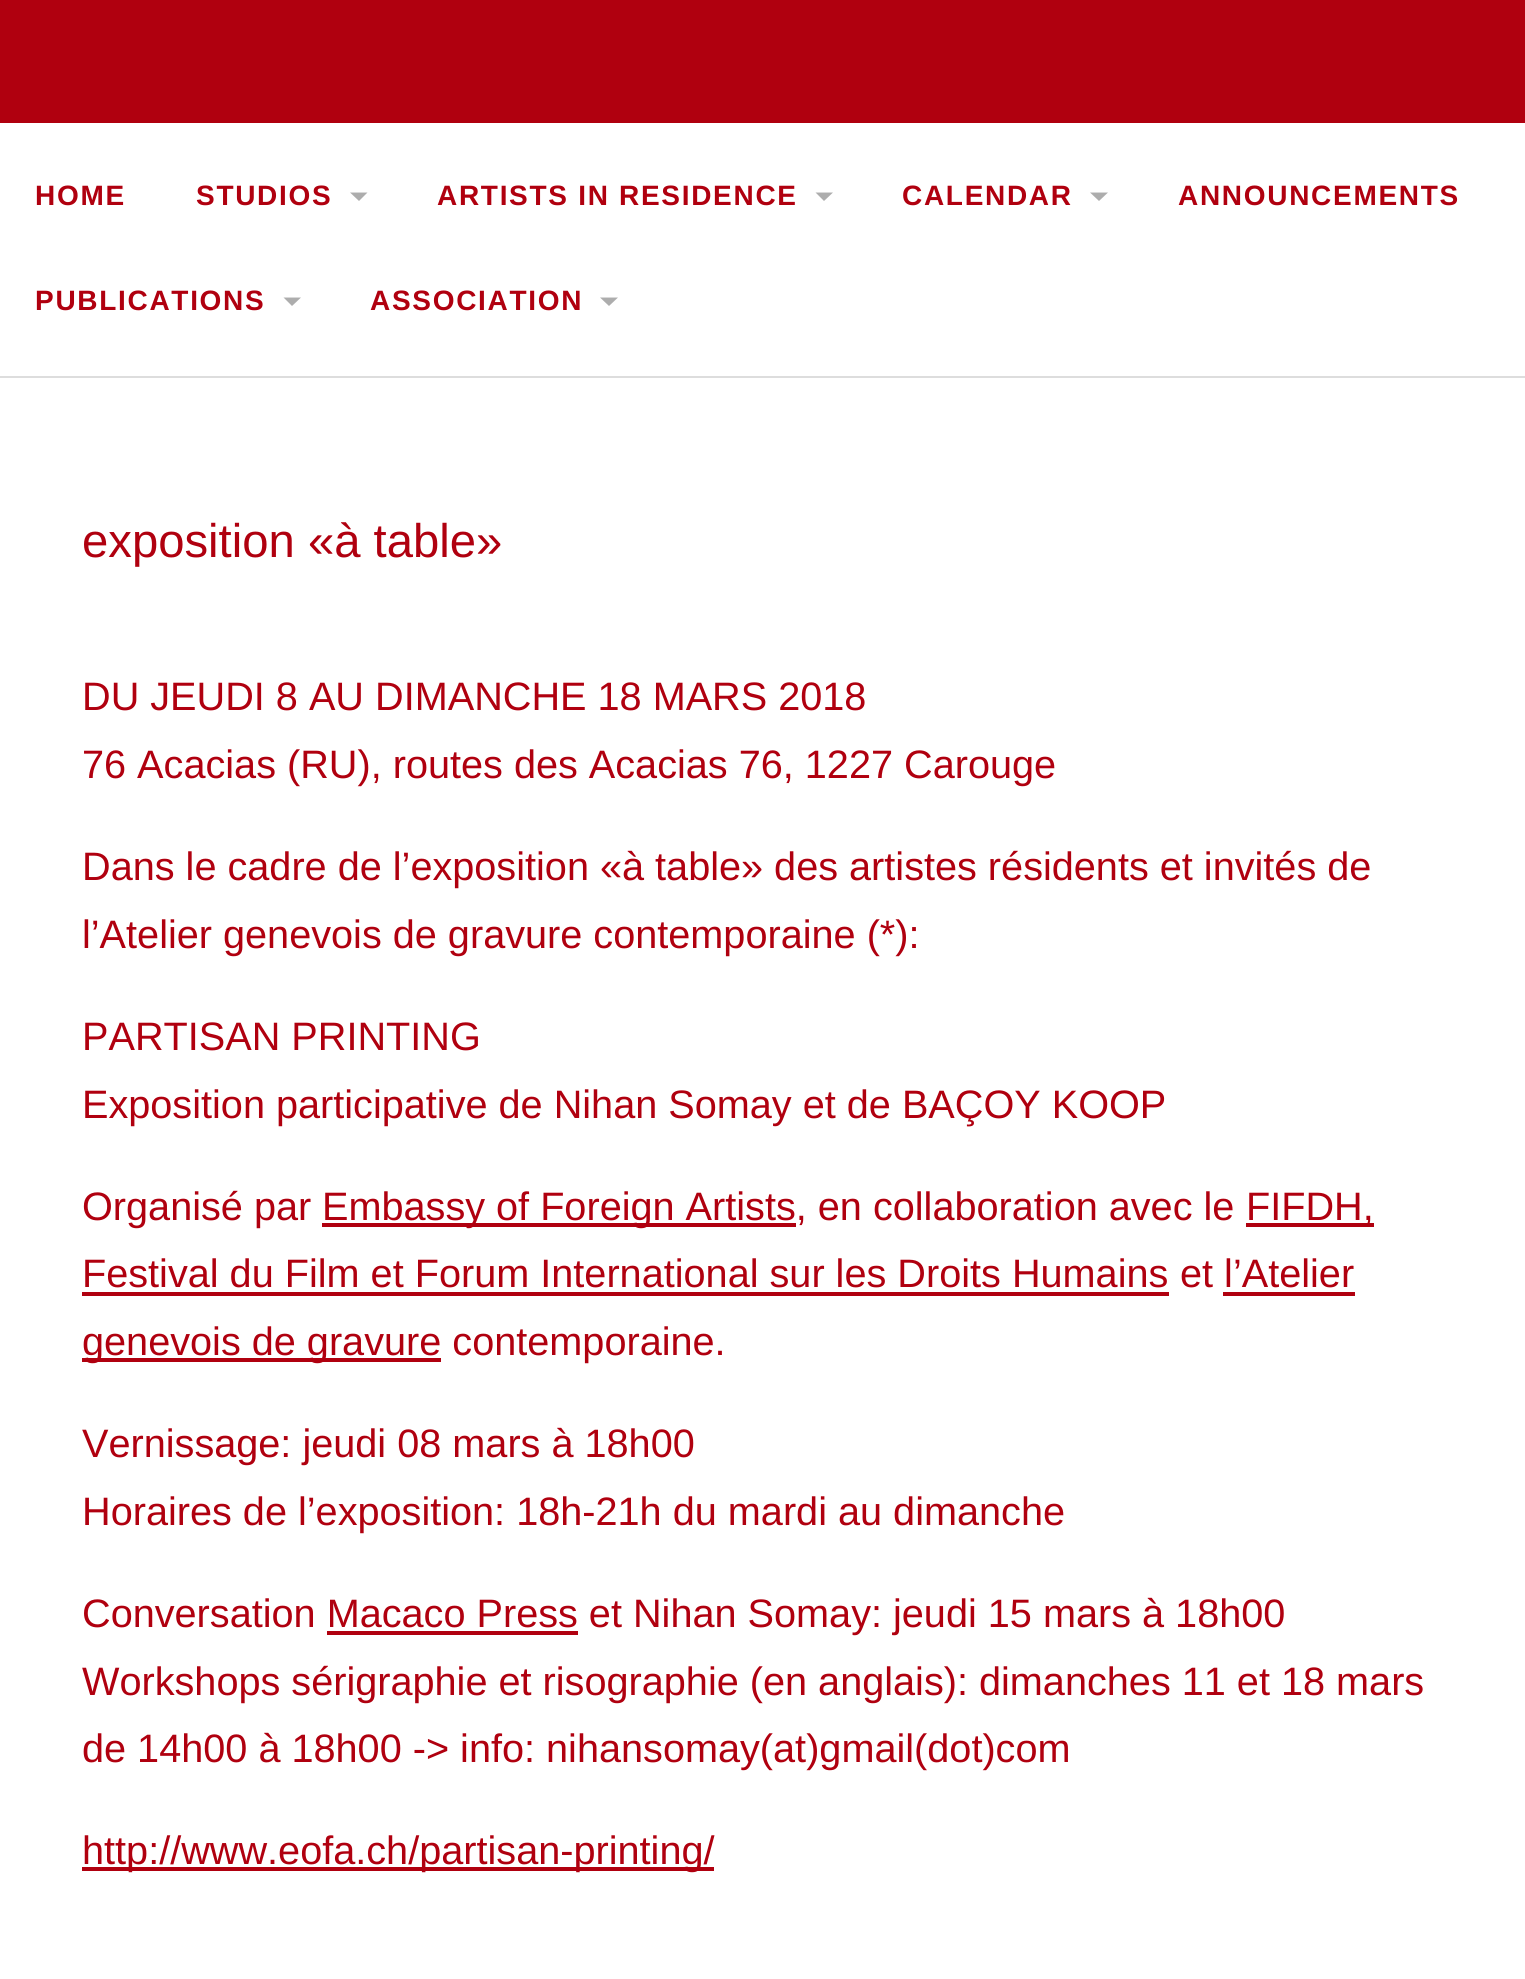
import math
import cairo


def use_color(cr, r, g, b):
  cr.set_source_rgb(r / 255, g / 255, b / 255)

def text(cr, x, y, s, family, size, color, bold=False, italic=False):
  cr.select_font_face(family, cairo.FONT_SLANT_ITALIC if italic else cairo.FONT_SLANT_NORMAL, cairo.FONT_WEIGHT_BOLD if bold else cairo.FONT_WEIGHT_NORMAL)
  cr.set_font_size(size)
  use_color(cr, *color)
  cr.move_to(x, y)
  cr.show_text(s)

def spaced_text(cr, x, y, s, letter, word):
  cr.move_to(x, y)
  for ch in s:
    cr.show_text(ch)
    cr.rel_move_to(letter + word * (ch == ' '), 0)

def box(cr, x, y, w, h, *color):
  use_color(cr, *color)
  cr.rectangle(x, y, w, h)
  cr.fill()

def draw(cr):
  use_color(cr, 255, 255, 255)
  cr.paint()
  box(cr, 0, 0, 1525, 123, 176, 0, 15)
  use_color(cr, 173, 173, 173)
  cr.new_path()
  cr.move_to(350, 192.5)
  cr.line_to(367.5, 192.5)
  cr.line_to(359, 201)
  cr.close_path()
  cr.fill()
  cr.new_path()
  cr.move_to(815.5, 192.5)
  cr.line_to(833, 192.5)
  cr.line_to(824, 201)
  cr.close_path()
  cr.fill()
  cr.new_path()
  cr.move_to(1090, 192.5)
  cr.line_to(1108, 192.5)
  cr.line_to(1099, 201)
  cr.close_path()
  cr.fill()
  cr.new_path()
  cr.move_to(283.5, 297.5)
  cr.line_to(301, 297.5)
  cr.line_to(292, 306)
  cr.close_path()
  cr.fill()
  cr.new_path()
  cr.move_to(600, 297.5)
  cr.line_to(618, 297.5)
  cr.line_to(609, 306)
  cr.close_path()
  cr.fill()
  box(cr, 0, 376, 1525, 2, 221, 221, 221)
  box(cr, 322, 1223, 474, 4, 176, 0, 15)
  box(cr, 1246, 1223, 128, 4, 176, 0, 15)
  box(cr, 82, 1292, 1087, 4, 176, 0, 15)
  box(cr, 1223, 1292, 132, 4, 176, 0, 15)
  box(cr, 82, 1358, 359, 4, 176, 0, 15)
  box(cr, 327, 1631, 251, 4, 176, 0, 15)
  box(cr, 82, 1867, 632, 4, 176, 0, 15)
  cr.select_font_face("Liberation Sans", cairo.FONT_SLANT_NORMAL, cairo.FONT_WEIGHT_BOLD)
  cr.set_font_size(28)
  spaced_text(cr, 35, 205, "HOME", 1.7, 0)
  spaced_text(cr, 196, 205, "STUDIOS", 1.7, 0)
  spaced_text(cr, 437, 205, "ARTISTS IN RESIDENCE", 1.7, 0)
  spaced_text(cr, 902, 205, "CALENDAR", 1.7, 0)
  spaced_text(cr, 1178, 205, "ANNOUNCEMENTS", 1.7, 0)
  spaced_text(cr, 35, 310, "PUBLICATIONS", 1.7, 0)
  spaced_text(cr, 370, 310, "ASSOCIATION", 1.7, 0)
  text(cr, 82, 557, "exposition «à table»", "Liberation Sans", 47.25, (176, 0, 15))
  text(cr, 82, 710, "DU JEUDI 8 AU DIMANCHE 18 MARS 2018", "Liberation Sans", 39.65, (176, 0, 15))
  text(cr, 82, 778, "76 Acacias (RU), routes des Acacias 76, 1227 Carouge", "Liberation Sans", 39.65, (176, 0, 15))
  text(cr, 82, 880, "Dans le cadre de l’exposition «à table» des artistes résidents et invités de", "Liberation Sans", 39.65, (176, 0, 15))
  text(cr, 82, 948, "l’Atelier genevois de gravure contemporaine (*):", "Liberation Sans", 39.65, (176, 0, 15))
  text(cr, 82, 1050, "PARTISAN PRINTING", "Liberation Sans", 39.65, (176, 0, 15))
  text(cr, 82, 1118, "Exposition participative de Nihan Somay et de BAÇOY KOOP", "Liberation Sans", 39.65, (176, 0, 15))
  text(cr, 82, 1220, "Organisé par", "Liberation Sans", 39.65, (176, 0, 15))
  text(cr, 322, 1220, "Embassy of Foreign Artists, en collaboration avec le", "Liberation Sans", 39.65, (176, 0, 15))
  text(cr, 1246, 1220, "FIFDH,", "Liberation Sans", 39.65, (176, 0, 15))
  text(cr, 82, 1287, "Festival du Film et Forum International sur les Droits Humains", "Liberation Sans", 39.65, (176, 0, 15))
  text(cr, 1180, 1287, "et l’Atelier", "Liberation Sans", 39.65, (176, 0, 15))
  text(cr, 82, 1355, "genevois de gravure contemporaine.", "Liberation Sans", 39.65, (176, 0, 15))
  text(cr, 82, 1457, "Vernissage: jeudi 08 mars à 18h00", "Liberation Sans", 39.65, (176, 0, 15))
  text(cr, 82, 1525, "Horaires de l’exposition: 18h-21h du mardi au dimanche", "Liberation Sans", 39.65, (176, 0, 15))
  text(cr, 82, 1627, "Conversation Macaco Press et Nihan Somay: jeudi 15 mars à 18h00", "Liberation Sans", 39.65, (176, 0, 15))
  text(cr, 82, 1695, "Workshops sérigraphie et risographie (en anglais): dimanches 11 et 18 mars", "Liberation Sans", 39.65, (176, 0, 15))
  text(cr, 82, 1762, "de 14h00 à 18h00 -> info: nihansomay(at)gmail(dot)com", "Liberation Sans", 39.65, (176, 0, 15))
  text(cr, 82, 1864, "http://www.eofa.ch/partisan-printing/", "Liberation Sans", 39.65, (176, 0, 15))


surface = cairo.ImageSurface(cairo.FORMAT_RGB24, 1525, 1979)
cr = cairo.Context(surface)
options = cairo.FontOptions()
options.set_hint_metrics(cairo.HINT_METRICS_OFF)
options.set_hint_style(cairo.HINT_STYLE_NONE)
cr.set_font_options(options)
cr.set_miter_limit(4)
draw(cr)
surface.write_to_png("out.png")
